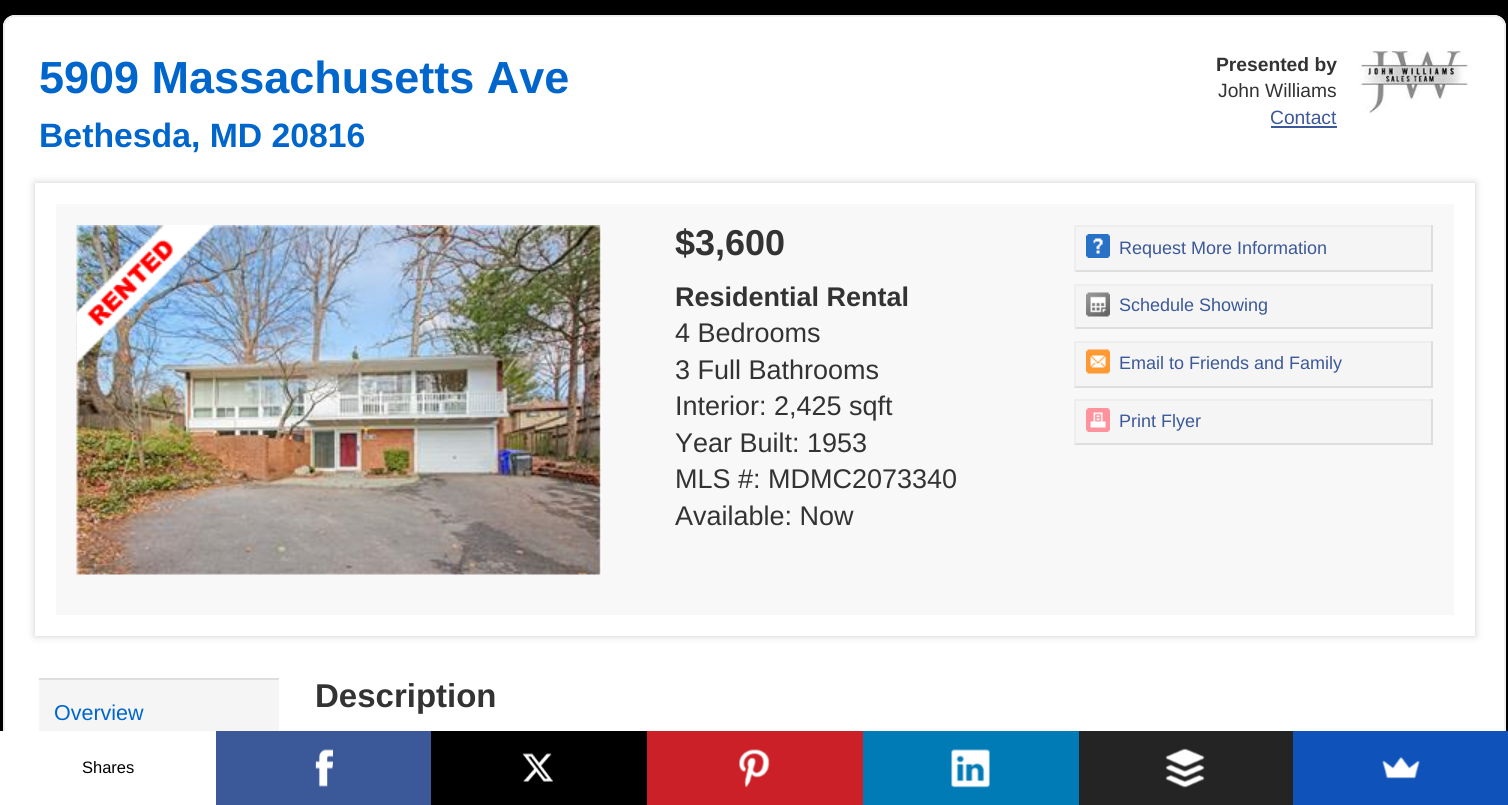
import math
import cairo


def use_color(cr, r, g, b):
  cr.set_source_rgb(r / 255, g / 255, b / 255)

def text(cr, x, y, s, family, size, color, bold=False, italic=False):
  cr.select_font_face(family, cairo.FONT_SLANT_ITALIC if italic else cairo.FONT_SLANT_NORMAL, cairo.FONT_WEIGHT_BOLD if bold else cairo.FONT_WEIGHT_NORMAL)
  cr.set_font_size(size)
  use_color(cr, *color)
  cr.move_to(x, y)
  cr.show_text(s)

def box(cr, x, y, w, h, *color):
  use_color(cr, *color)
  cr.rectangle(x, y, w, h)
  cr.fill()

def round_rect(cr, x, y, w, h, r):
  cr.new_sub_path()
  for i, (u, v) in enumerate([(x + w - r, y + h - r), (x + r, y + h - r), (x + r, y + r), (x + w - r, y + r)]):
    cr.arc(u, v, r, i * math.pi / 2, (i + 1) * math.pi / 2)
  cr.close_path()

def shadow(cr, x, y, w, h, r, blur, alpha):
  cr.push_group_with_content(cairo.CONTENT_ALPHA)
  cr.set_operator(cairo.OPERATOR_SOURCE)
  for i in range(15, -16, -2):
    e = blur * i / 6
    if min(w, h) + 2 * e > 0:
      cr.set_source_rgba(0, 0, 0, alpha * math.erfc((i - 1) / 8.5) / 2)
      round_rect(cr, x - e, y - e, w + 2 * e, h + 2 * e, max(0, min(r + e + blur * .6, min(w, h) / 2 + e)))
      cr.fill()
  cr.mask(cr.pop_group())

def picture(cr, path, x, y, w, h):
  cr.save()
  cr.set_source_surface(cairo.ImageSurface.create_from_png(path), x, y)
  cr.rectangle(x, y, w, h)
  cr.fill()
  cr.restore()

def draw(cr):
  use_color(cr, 0, 0, 0)
  cr.paint()
  use_color(cr, 255, 255, 255)
  cr.new_path()
  cr.move_to(15, 15)
  cr.line_to(1494, 15)
  cr.curve_to(1500.5, 15, 1506, 20.5, 1506, 27)
  cr.line_to(1506, 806)
  cr.line_to(3, 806)
  cr.line_to(3, 27)
  cr.curve_to(3, 20.5, 8.5, 15, 15, 15)
  cr.close_path()
  cr.fill()
  picture(cr, "img_01.png", 3, 16, 1503, 11)
  round_rect(cr, 4, 16, 1501, 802, 11)
  use_color(cr, 239, 239, 239)
  cr.stroke()
  box(cr, 1271, 126, 66, 2, 59, 89, 152)
  picture(cr, "img_02.png", 1357, 51, 111, 62)
  use_color(cr, 0, 0, 0)
  shadow(cr, 35, 183, 1440, 453, 0, 4, 0.2)
  use_color(cr, 248, 248, 248)
  cr.rectangle(45.5, 193.5, 1419, 432)
  cr.fill_preserve()
  use_color(cr, 255, 255, 255)
  cr.set_line_width(21)
  cr.stroke()
  picture(cr, "img_03.png", 76, 225, 526, 350)
  picture(cr, "img_04.png", 76, 225, 139, 139)
  box(cr, 1076, 227, 355, 43, 245, 245, 245)
  box(cr, 1074, 225, 359, 2, 238, 238, 238)
  box(cr, 1431, 225, 2, 47, 222, 222, 222)
  box(cr, 1074, 270, 359, 2, 222, 222, 222)
  box(cr, 1074, 225, 2, 47, 238, 238, 238)
  picture(cr, "img_05.png", 1086, 234, 24, 24)
  box(cr, 1076, 286, 355, 41, 245, 245, 245)
  box(cr, 1074, 284, 359, 2, 238, 238, 238)
  box(cr, 1431, 284, 2, 45, 222, 222, 222)
  box(cr, 1074, 327, 359, 2, 222, 222, 222)
  box(cr, 1074, 284, 2, 45, 238, 238, 238)
  picture(cr, "img_06.png", 1086, 292, 24, 25)
  box(cr, 1076, 343, 355, 43, 245, 245, 245)
  box(cr, 1074, 341, 359, 2, 238, 238, 238)
  box(cr, 1431, 341, 2, 46, 222, 222, 222)
  box(cr, 1074, 386, 359, 2, 222, 222, 222)
  box(cr, 1074, 341, 2, 46, 238, 238, 238)
  picture(cr, "img_07.png", 1086, 349, 24, 25)
  box(cr, 1076, 401, 355, 42, 245, 245, 245)
  box(cr, 1074, 399, 359, 2, 238, 238, 238)
  box(cr, 1431, 399, 2, 45, 222, 222, 222)
  box(cr, 1074, 443, 359, 2, 222, 222, 222)
  box(cr, 1074, 399, 2, 45, 238, 238, 238)
  picture(cr, "img_08.png", 1086, 408, 24, 24)
  box(cr, 39, 680, 240, 51, 245, 245, 245)
  box(cr, 39, 678, 240, 2, 222, 222, 222)
  box(cr, 0, 731, 5, 74, 255, 255, 255)
  box(cr, 216, 731, 215, 74, 59, 89, 152)
  picture(cr, "img_09.png", 315, 749, 18, 38)
  box(cr, 431, 731, 216, 74, 0, 0, 0)
  picture(cr, "img_10.png", 522, 753, 31, 29)
  box(cr, 647, 731, 216, 74, 203, 32, 39)
  picture(cr, "img_11.png", 739, 749, 31, 39)
  box(cr, 863, 731, 216, 74, 0, 123, 182)
  picture(cr, "img_12.png", 951, 749, 39, 39)
  box(cr, 1079, 731, 214, 74, 36, 36, 36)
  picture(cr, "img_13.png", 1165, 748, 40, 40)
  box(cr, 1293, 731, 215, 74, 15, 82, 186)
  picture(cr, "img_14.png", 1382, 757, 38, 22)
  text(cr, 39, 93, "5909 Massachusetts Ave", "Liberation Sans", 45, (0, 102, 204), bold=True)
  text(cr, 39, 147, "Bethesda, MD 20816", "Liberation Sans", 33.75, (0, 102, 204), bold=True)
  text(cr, 1216, 71, "Presented by", "Liberation Sans", 19.25, (51, 51, 51), bold=True)
  text(cr, 1218, 97, "John Williams", "Liberation Sans", 19.25, (51, 51, 51))
  text(cr, 1270, 124, "Contact", "Liberation Sans", 19.25, (59, 89, 152))
  text(cr, 675, 255, "$3,600", "Liberation Sans", 36, (51, 51, 51), bold=True)
  text(cr, 675, 306, "Residential Rental", "Liberation Sans", 27, (51, 51, 51), bold=True)
  text(cr, 675, 342, "4 Bedrooms", "Liberation Sans", 27, (51, 51, 51))
  text(cr, 675, 379, "3 Full Bathrooms", "Liberation Sans", 27, (51, 51, 51))
  text(cr, 675, 415, "Interior: 2,425 sqft", "Liberation Sans", 27, (51, 51, 51))
  text(cr, 675, 452, "Year Built: 1953", "Liberation Sans", 27, (51, 51, 51))
  text(cr, 675, 488, "MLS #: MDMC2073340", "Liberation Sans", 27, (51, 51, 51))
  text(cr, 675, 525, "Available: Now", "Liberation Sans", 27, (51, 51, 51))
  text(cr, 1119, 254, "Request More Information", "Liberation Sans", 18, (59, 89, 152))
  text(cr, 1119, 311, "Schedule Showing", "Liberation Sans", 18, (59, 89, 152))
  text(cr, 1119, 369, "Email to Friends and Family", "Liberation Sans", 18, (59, 89, 152))
  text(cr, 1119, 427, "Print Flyer", "Liberation Sans", 18, (59, 89, 152))
  text(cr, 54, 720, "Overview", "Liberation Sans", 21.5, (0, 102, 204))
  text(cr, 315, 707, "Description", "Liberation Sans", 33, (51, 51, 51), bold=True)
  text(cr, 82, 773, "Shares", "Liberation Sans", 16.5, (0, 0, 0))


surface = cairo.ImageSurface(cairo.FORMAT_RGB24, 1508, 805)
cr = cairo.Context(surface)
options = cairo.FontOptions()
options.set_hint_metrics(cairo.HINT_METRICS_OFF)
options.set_hint_style(cairo.HINT_STYLE_NONE)
cr.set_font_options(options)
cr.set_miter_limit(4)
draw(cr)
surface.write_to_png("out.png")
